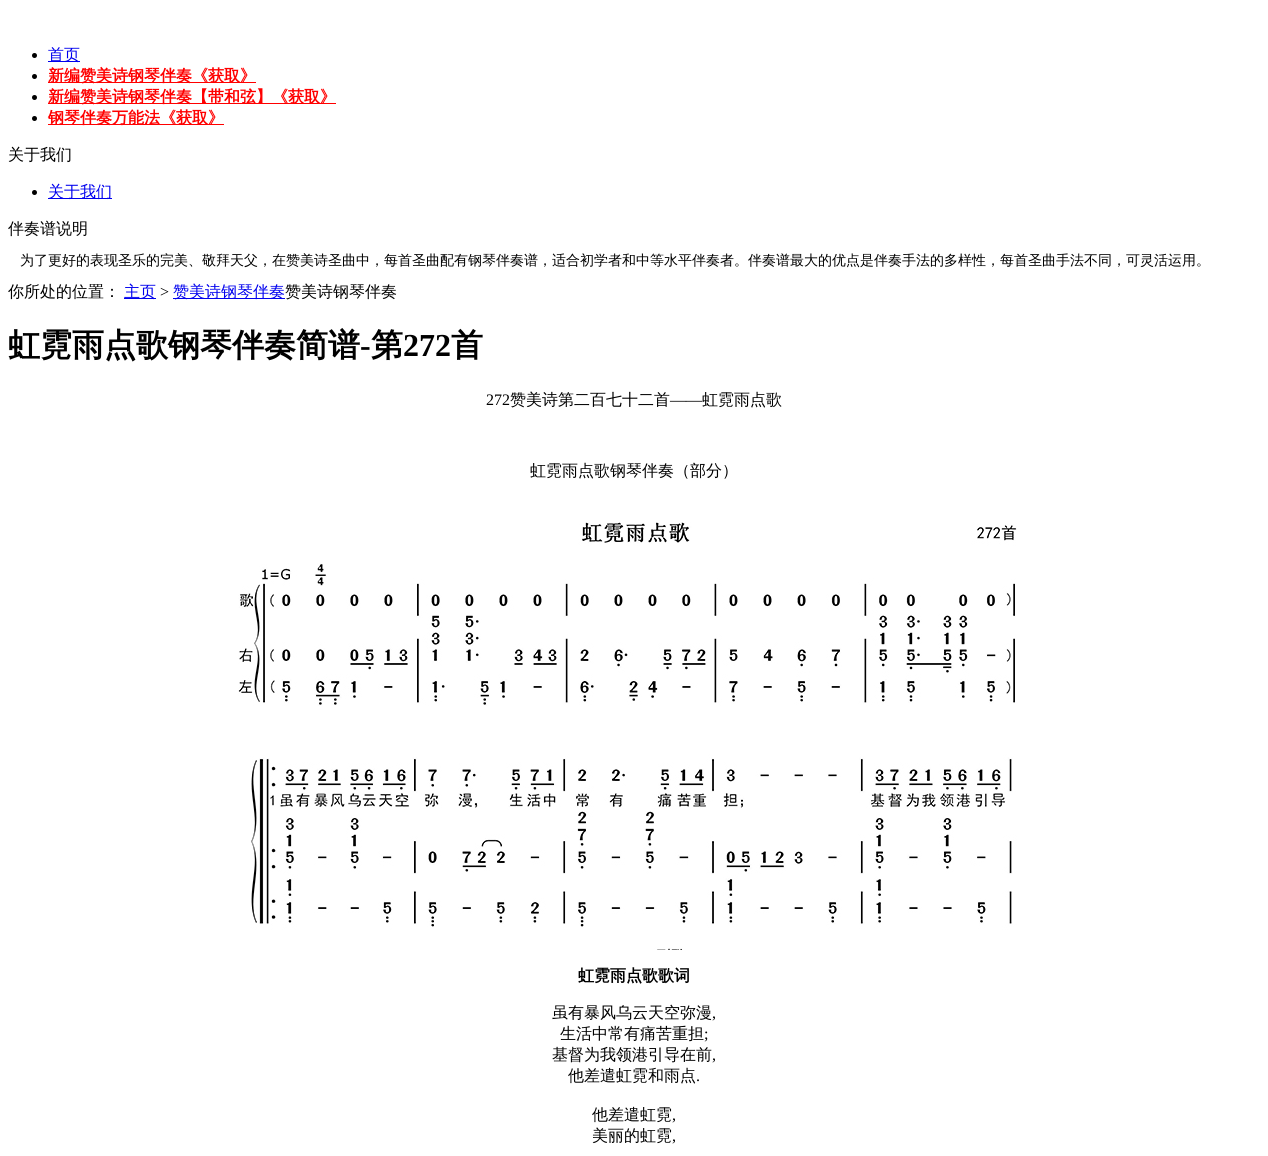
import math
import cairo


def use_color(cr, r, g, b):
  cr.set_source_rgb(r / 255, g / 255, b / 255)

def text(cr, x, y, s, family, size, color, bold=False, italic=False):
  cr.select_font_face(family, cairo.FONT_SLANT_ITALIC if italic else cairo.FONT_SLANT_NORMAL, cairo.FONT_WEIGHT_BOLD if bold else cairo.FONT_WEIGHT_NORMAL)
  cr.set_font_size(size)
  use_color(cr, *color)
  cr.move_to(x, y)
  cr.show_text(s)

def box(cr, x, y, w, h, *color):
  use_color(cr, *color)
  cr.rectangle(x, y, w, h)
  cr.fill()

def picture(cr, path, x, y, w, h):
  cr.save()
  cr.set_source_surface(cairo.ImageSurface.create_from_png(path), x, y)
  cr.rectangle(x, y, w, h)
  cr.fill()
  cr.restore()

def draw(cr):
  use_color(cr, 255, 255, 255)
  cr.paint()
  use_color(cr, 0, 0, 0)
  cr.arc(34.5, 55.5, 2.5, 0, 2 * math.pi)
  cr.fill()
  box(cr, 48, 61, 32, 1, 0, 0, 238)
  use_color(cr, 0, 0, 0)
  cr.arc(34.5, 76.5, 2.5, 0, 2 * math.pi)
  cr.fill()
  box(cr, 48, 82, 208, 1, 255, 0, 0)
  use_color(cr, 0, 0, 0)
  cr.arc(34.5, 97.5, 2.5, 0, 2 * math.pi)
  cr.fill()
  box(cr, 48, 103, 288, 1, 255, 0, 0)
  use_color(cr, 0, 0, 0)
  cr.arc(34.5, 118.5, 2.5, 0, 2 * math.pi)
  cr.fill()
  box(cr, 48, 124, 176, 1, 255, 0, 0)
  use_color(cr, 0, 0, 0)
  cr.arc(34.5, 192.5, 2.5, 0, 2 * math.pi)
  cr.fill()
  box(cr, 48, 198, 64, 1, 0, 0, 238)
  box(cr, 124, 298, 32, 1, 0, 0, 238)
  box(cr, 173, 298, 112, 1, 0, 0, 238)
  picture(cr, "img_01.png", 238, 522, 779, 428)
  text(cr, 48, 60, "首页", "WenQuanYi Zen Hei Medium", 16, (0, 0, 238))
  text(cr, 48, 81, "新编赞美诗钢琴伴奏《获取》", "WenQuanYi Zen Hei", 16, (255, 0, 0), bold=True)
  text(cr, 48, 102, "新编赞美诗钢琴伴奏【带和弦】《获取》", "WenQuanYi Zen Hei", 16, (255, 0, 0), bold=True)
  text(cr, 48, 123, "钢琴伴奏万能法《获取》", "WenQuanYi Zen Hei", 16, (255, 0, 0), bold=True)
  text(cr, 8, 160, "关于我们", "WenQuanYi Zen Hei Medium", 16, (0, 0, 0))
  text(cr, 48, 197, "关于我们", "WenQuanYi Zen Hei Medium", 16, (0, 0, 238))
  text(cr, 8, 234, "伴奏谱说明", "WenQuanYi Zen Hei Medium", 16, (0, 0, 0))
  text(cr, 20, 265, "为了更好的表现圣乐的完美、敬拜天父，在赞美诗圣曲中，每首圣曲配有钢琴伴奏谱，适合初学者和中等水平伴奏者。伴奏谱最大的优点是伴奏手法的多样性，每首圣曲手法不同，可灵活运用。", "WenQuanYi Zen Hei Medium", 14, (0, 0, 0))
  text(cr, 8, 297, "你所处的位置：", "WenQuanYi Zen Hei Medium", 16, (0, 0, 0))
  text(cr, 124, 297, "主页", "WenQuanYi Zen Hei Medium", 16, (0, 0, 238))
  text(cr, 160, 297, ">", "Liberation Serif", 16, (0, 0, 0))
  text(cr, 173, 297, "赞美诗钢琴伴奏", "WenQuanYi Zen Hei Medium", 16, (0, 0, 238))
  text(cr, 285, 297, "赞美诗钢琴伴奏", "WenQuanYi Zen Hei Medium", 16, (0, 0, 0))
  text(cr, 8, 356, "虹霓雨点歌钢琴伴奏简谱", "WenQuanYi Zen Hei", 32, (0, 0, 0), bold=True)
  text(cr, 360, 356, "-", "Liberation Serif", 32, (0, 0, 0), bold=True)
  text(cr, 371, 356, "第", "WenQuanYi Zen Hei", 32, (0, 0, 0), bold=True)
  text(cr, 403, 356, "272", "Liberation Serif", 32, (0, 0, 0), bold=True)
  text(cr, 451, 356, "首", "WenQuanYi Zen Hei", 32, (0, 0, 0), bold=True)
  text(cr, 486, 405, "272", "Liberation Serif", 16, (0, 0, 0))
  text(cr, 510, 405, "赞美诗第二百七十二首", "WenQuanYi Zen Hei Medium", 16, (0, 0, 0))
  text(cr, 670, 405, "——", "Liberation Serif", 16, (0, 0, 0))
  text(cr, 702, 405, "虹霓雨点歌", "WenQuanYi Zen Hei Medium", 16, (0, 0, 0))
  text(cr, 530, 476, "虹霓雨点歌钢琴伴奏（部分）", "WenQuanYi Zen Hei Medium", 16, (0, 0, 0))
  text(cr, 578, 981, "虹霓雨点歌歌词", "WenQuanYi Zen Hei", 16, (0, 0, 0), bold=True)
  text(cr, 552, 1018, "虽有暴风乌云天空弥漫", "WenQuanYi Zen Hei Medium", 16, (0, 0, 0))
  text(cr, 712, 1018, ",", "Liberation Serif", 16, (0, 0, 0))
  text(cr, 560, 1039, "生活中常有痛苦重担", "WenQuanYi Zen Hei Medium", 16, (0, 0, 0))
  text(cr, 704, 1039, ";", "Liberation Serif", 16, (0, 0, 0))
  text(cr, 552, 1060, "基督为我领港引导在前", "WenQuanYi Zen Hei Medium", 16, (0, 0, 0))
  text(cr, 712, 1060, ",", "Liberation Serif", 16, (0, 0, 0))
  text(cr, 568, 1081, "他差遣虹霓和雨点", "WenQuanYi Zen Hei Medium", 16, (0, 0, 0))
  text(cr, 696, 1081, ".", "Liberation Serif", 16, (0, 0, 0))
  text(cr, 592, 1120, "他差遣虹霓", "WenQuanYi Zen Hei Medium", 16, (0, 0, 0))
  text(cr, 672, 1120, ",", "Liberation Serif", 16, (0, 0, 0))
  text(cr, 592, 1141, "美丽的虹霓", "WenQuanYi Zen Hei Medium", 16, (0, 0, 0))
  text(cr, 672, 1141, ",", "Liberation Serif", 16, (0, 0, 0))


surface = cairo.ImageSurface(cairo.FORMAT_RGB24, 1268, 1156)
cr = cairo.Context(surface)
options = cairo.FontOptions()
options.set_hint_metrics(cairo.HINT_METRICS_OFF)
options.set_hint_style(cairo.HINT_STYLE_NONE)
cr.set_font_options(options)
cr.set_miter_limit(4)
draw(cr)
surface.write_to_png("out.png")
